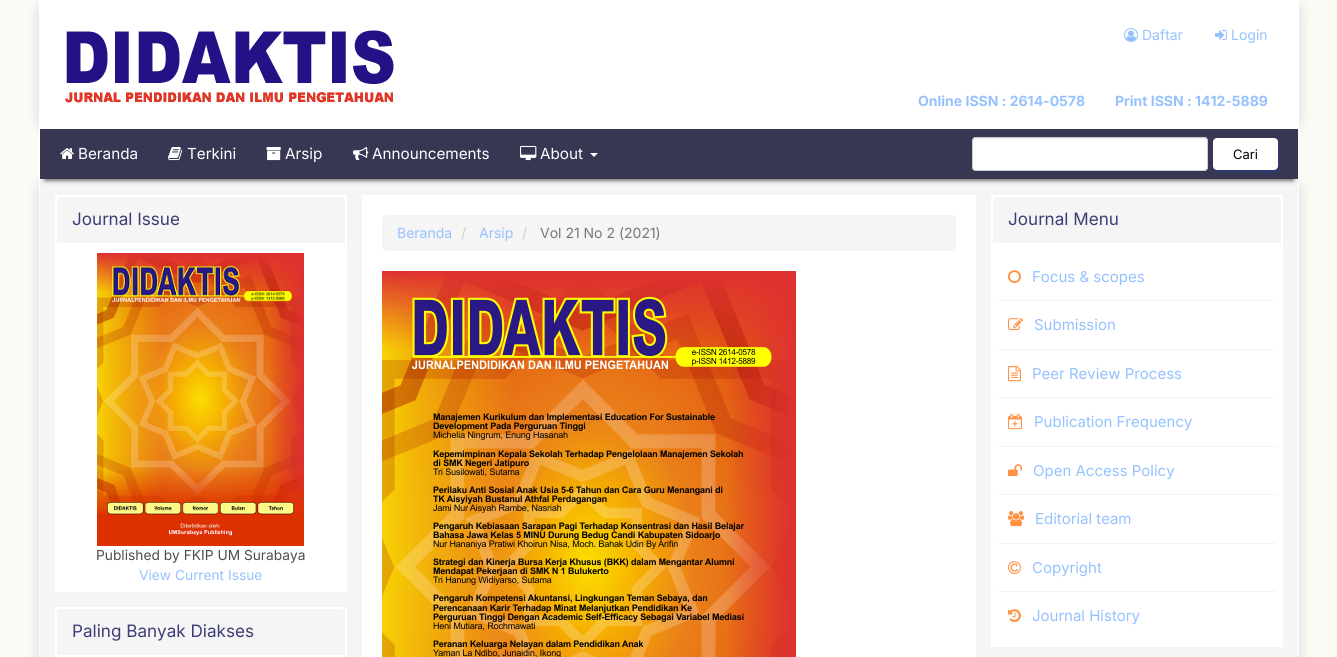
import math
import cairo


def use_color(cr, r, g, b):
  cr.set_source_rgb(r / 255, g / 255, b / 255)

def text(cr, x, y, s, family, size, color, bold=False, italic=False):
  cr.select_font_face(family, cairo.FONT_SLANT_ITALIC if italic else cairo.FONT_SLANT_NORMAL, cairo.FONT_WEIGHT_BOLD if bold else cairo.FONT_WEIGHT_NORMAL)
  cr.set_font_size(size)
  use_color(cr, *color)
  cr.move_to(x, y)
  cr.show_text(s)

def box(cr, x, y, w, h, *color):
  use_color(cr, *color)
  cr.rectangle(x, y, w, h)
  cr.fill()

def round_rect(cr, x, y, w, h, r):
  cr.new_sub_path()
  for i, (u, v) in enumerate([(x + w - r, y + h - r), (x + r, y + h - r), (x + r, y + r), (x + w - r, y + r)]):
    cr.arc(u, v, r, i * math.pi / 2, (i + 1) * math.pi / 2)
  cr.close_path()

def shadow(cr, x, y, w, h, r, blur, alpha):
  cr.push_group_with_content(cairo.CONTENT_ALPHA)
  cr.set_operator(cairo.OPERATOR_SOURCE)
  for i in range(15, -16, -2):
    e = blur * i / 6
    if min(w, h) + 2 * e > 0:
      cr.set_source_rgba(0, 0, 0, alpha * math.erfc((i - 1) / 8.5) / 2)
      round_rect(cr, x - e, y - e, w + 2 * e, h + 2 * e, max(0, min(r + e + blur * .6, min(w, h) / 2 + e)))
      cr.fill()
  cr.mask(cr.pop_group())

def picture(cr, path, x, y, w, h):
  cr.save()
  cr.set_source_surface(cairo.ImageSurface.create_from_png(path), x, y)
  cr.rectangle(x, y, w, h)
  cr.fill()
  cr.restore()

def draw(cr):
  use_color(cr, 250, 251, 244)
  cr.paint()
  use_color(cr, 39, 39, 136)
  shadow(cr, 49, 11, 1240, 109, 0, 9, 0.75)
  box(cr, 39, 0, 1260, 129, 255, 255, 255)
  picture(cr, "img_01.png", 65, 30, 329, 73)
  picture(cr, "img_02.png", 1124, 28, 14, 14)
  picture(cr, "img_03.png", 1215, 30, 12, 10)
  use_color(cr, 39, 39, 136)
  shadow(cr, 49, 190, 1240, 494, 0, 9, 0.75)
  use_color(cr, 245, 245, 245)
  cr.rectangle(39.5, 179.5, 1259, 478)
  cr.fill_preserve()
  use_color(cr, 255, 255, 255)
  cr.set_line_width(1)
  cr.stroke()
  use_color(cr, 0, 0, 0)
  shadow(cr, 45, 142, 1248, 38, 0, 2.5, 0.75)
  box(cr, 40, 129, 1258, 50, 55, 55, 84)
  box(cr, 1298, 129, 1, 50, 255, 255, 255)
  box(cr, 39, 129, 1, 50, 255, 255, 255)
  picture(cr, "img_04.png", 60, 148, 14, 11)
  picture(cr, "img_05.png", 168, 147, 15, 14)
  picture(cr, "img_06.png", 266, 147, 15, 14)
  picture(cr, "img_07.png", 353, 147, 16, 14)
  picture(cr, "img_08.png", 520, 145, 17, 16)
  cr.new_path()
  cr.move_to(590, 153)
  cr.line_to(598, 153)
  cr.line_to(594, 157)
  cr.close_path()
  cr.fill()
  round_rect(cr, 972, 137, 236, 34, 4)
  cr.fill()
  use_color(cr, 236, 236, 236)
  cr.new_path()
  cr.move_to(976, 139)
  cr.line_to(1204, 139)
  cr.curve_to(1206, 139, 1207, 140, 1207, 142)
  cr.curve_to(1207, 140, 1206, 138, 1204, 138)
  cr.line_to(976, 138)
  cr.curve_to(974, 138, 973, 140, 973, 142)
  cr.curve_to(973, 140, 974, 139, 976, 139)
  cr.close_path()
  cr.fill()
  round_rect(cr, 972.5, 137.5, 235, 33, 3.5)
  use_color(cr, 204, 204, 204)
  cr.stroke()
  use_color(cr, 11, 71, 247)
  shadow(cr, 1219, 145, 57, 24, 0, 2.5, 0.75)
  use_color(cr, 255, 255, 255)
  round_rect(cr, 1213, 138, 65, 32, 4)
  cr.fill()
  box(cr, 55, 195, 292, 397, 255, 255, 255)
  use_color(cr, 245, 245, 245)
  cr.new_path()
  cr.move_to(60, 197)
  cr.line_to(342, 197)
  cr.curve_to(343.5, 197, 345, 198.5, 345, 200)
  cr.line_to(345, 243)
  cr.line_to(57, 243)
  cr.line_to(57, 200)
  cr.curve_to(57, 198.5, 58.5, 197, 60, 197)
  cr.close_path()
  cr.fill()
  picture(cr, "img_09.png", 97, 253, 207, 293)
  box(cr, 55, 607, 292, 50, 255, 255, 255)
  use_color(cr, 245, 245, 245)
  cr.new_path()
  cr.move_to(60, 609)
  cr.line_to(342, 609)
  cr.curve_to(343.5, 609, 345, 610.5, 345, 612)
  cr.line_to(345, 655)
  cr.line_to(57, 655)
  cr.line_to(57, 612)
  cr.curve_to(57, 610.5, 58.5, 609, 60, 609)
  cr.close_path()
  cr.fill()
  box(cr, 362, 195, 614, 462, 255, 255, 255)
  use_color(cr, 245, 245, 245)
  round_rect(cr, 382, 215, 574, 36, 4)
  cr.fill()
  picture(cr, "img_10.png", 382, 271, 414, 386)
  box(cr, 991, 195, 292, 452, 255, 255, 255)
  use_color(cr, 245, 245, 245)
  cr.new_path()
  cr.move_to(996, 197)
  cr.line_to(1278, 197)
  cr.curve_to(1279.5, 197, 1281, 198.5, 1281, 200)
  cr.line_to(1281, 243)
  cr.line_to(993, 243)
  cr.line_to(993, 200)
  cr.curve_to(993, 198.5, 994.5, 197, 996, 197)
  cr.close_path()
  cr.fill()
  box(cr, 998, 300, 278, 1, 244, 244, 245)
  picture(cr, "img_11.png", 1008, 270, 13, 14)
  box(cr, 998, 349, 278, 1, 244, 244, 245)
  picture(cr, "img_12.png", 1008, 318, 15, 12)
  box(cr, 998, 397, 278, 1, 244, 244, 245)
  picture(cr, "img_13.png", 1008, 366, 13, 16)
  box(cr, 998, 446, 278, 1, 244, 244, 245)
  picture(cr, "img_14.png", 1008, 414, 14, 16)
  box(cr, 998, 494, 278, 1, 244, 244, 245)
  picture(cr, "img_15.png", 1008, 464, 14, 12)
  box(cr, 998, 543, 278, 1, 244, 244, 245)
  picture(cr, "img_16.png", 1008, 511, 17, 16)
  box(cr, 998, 591, 278, 1, 244, 244, 245)
  picture(cr, "img_17.png", 1008, 561, 13, 14)
  picture(cr, "img_18.png", 1008, 609, 13, 14)
  text(cr, 1142, 40, "Daftar", "Inter", 14, (149, 193, 255))
  text(cr, 1231, 40, "Login", "Inter", 14, (149, 193, 255))
  text(cr, 918, 106, "Online ISSN : 2614-0578", "Inter", 14, (149, 193, 255), bold=True)
  text(cr, 1115, 106, "Print ISSN : 1412-5889", "Inter", 14, (149, 193, 255), bold=True)
  text(cr, 78, 159, "Beranda", "Inter", 15.25, (255, 255, 255))
  text(cr, 187, 159, "Terkini", "Inter", 15.25, (255, 255, 255))
  text(cr, 285, 159, "Arsip", "Inter", 15.25, (255, 255, 255))
  text(cr, 372, 159, "Announcements", "Inter", 15.25, (255, 255, 255))
  text(cr, 540, 159, "About", "Inter", 15.25, (255, 255, 255))
  text(cr, 1233, 159, "Cari", "Inter", 13, (0, 0, 0))
  text(cr, 72, 225, "Journal Issue", "Inter", 17.1, (62, 62, 118))
  text(cr, 96, 560, "Published by FKIP UM Surabaya", "Inter", 13.75, (76, 76, 76))
  text(cr, 139, 580, "View Current Issue", "Inter", 13.75, (149, 193, 255))
  text(cr, 72, 637, "Paling Banyak Diakses", "Inter", 17.1, (62, 62, 118))
  text(cr, 397, 238, "Beranda", "Inter", 14, (149, 193, 255))
  text(cr, 461, 238, "/", "Inter", 14, (204, 204, 204))
  text(cr, 479, 238, "Arsip", "Inter", 14, (149, 193, 255))
  text(cr, 522, 238, "/", "Inter", 14, (204, 204, 204))
  text(cr, 540, 238, "Vol 21 No 2 (2021)", "Inter", 14, (119, 119, 119))
  text(cr, 1008, 225, "Journal Menu", "Inter", 17.1, (62, 62, 118))
  text(cr, 1032, 282, "Focus & scopes", "Inter", 15, (149, 193, 255))
  text(cr, 1034, 330, "Submission", "Inter", 15, (149, 193, 255))
  text(cr, 1032, 379, "Peer Review Process", "Inter", 15, (149, 193, 255))
  text(cr, 1034, 427, "Publication Frequency", "Inter", 15, (149, 193, 255))
  text(cr, 1033, 476, "Open Access Policy", "Inter", 15, (149, 193, 255))
  text(cr, 1035, 524, "Editorial team", "Inter", 15, (149, 193, 255))
  text(cr, 1032, 573, "Copyright", "Inter", 15, (149, 193, 255))
  text(cr, 1032, 621, "Journal History", "Inter", 15, (149, 193, 255))


surface = cairo.ImageSurface(cairo.FORMAT_RGB24, 1337, 657)
cr = cairo.Context(surface)
options = cairo.FontOptions()
options.set_hint_metrics(cairo.HINT_METRICS_OFF)
options.set_hint_style(cairo.HINT_STYLE_NONE)
cr.set_font_options(options)
cr.set_miter_limit(4)
draw(cr)
surface.write_to_png("out.png")
